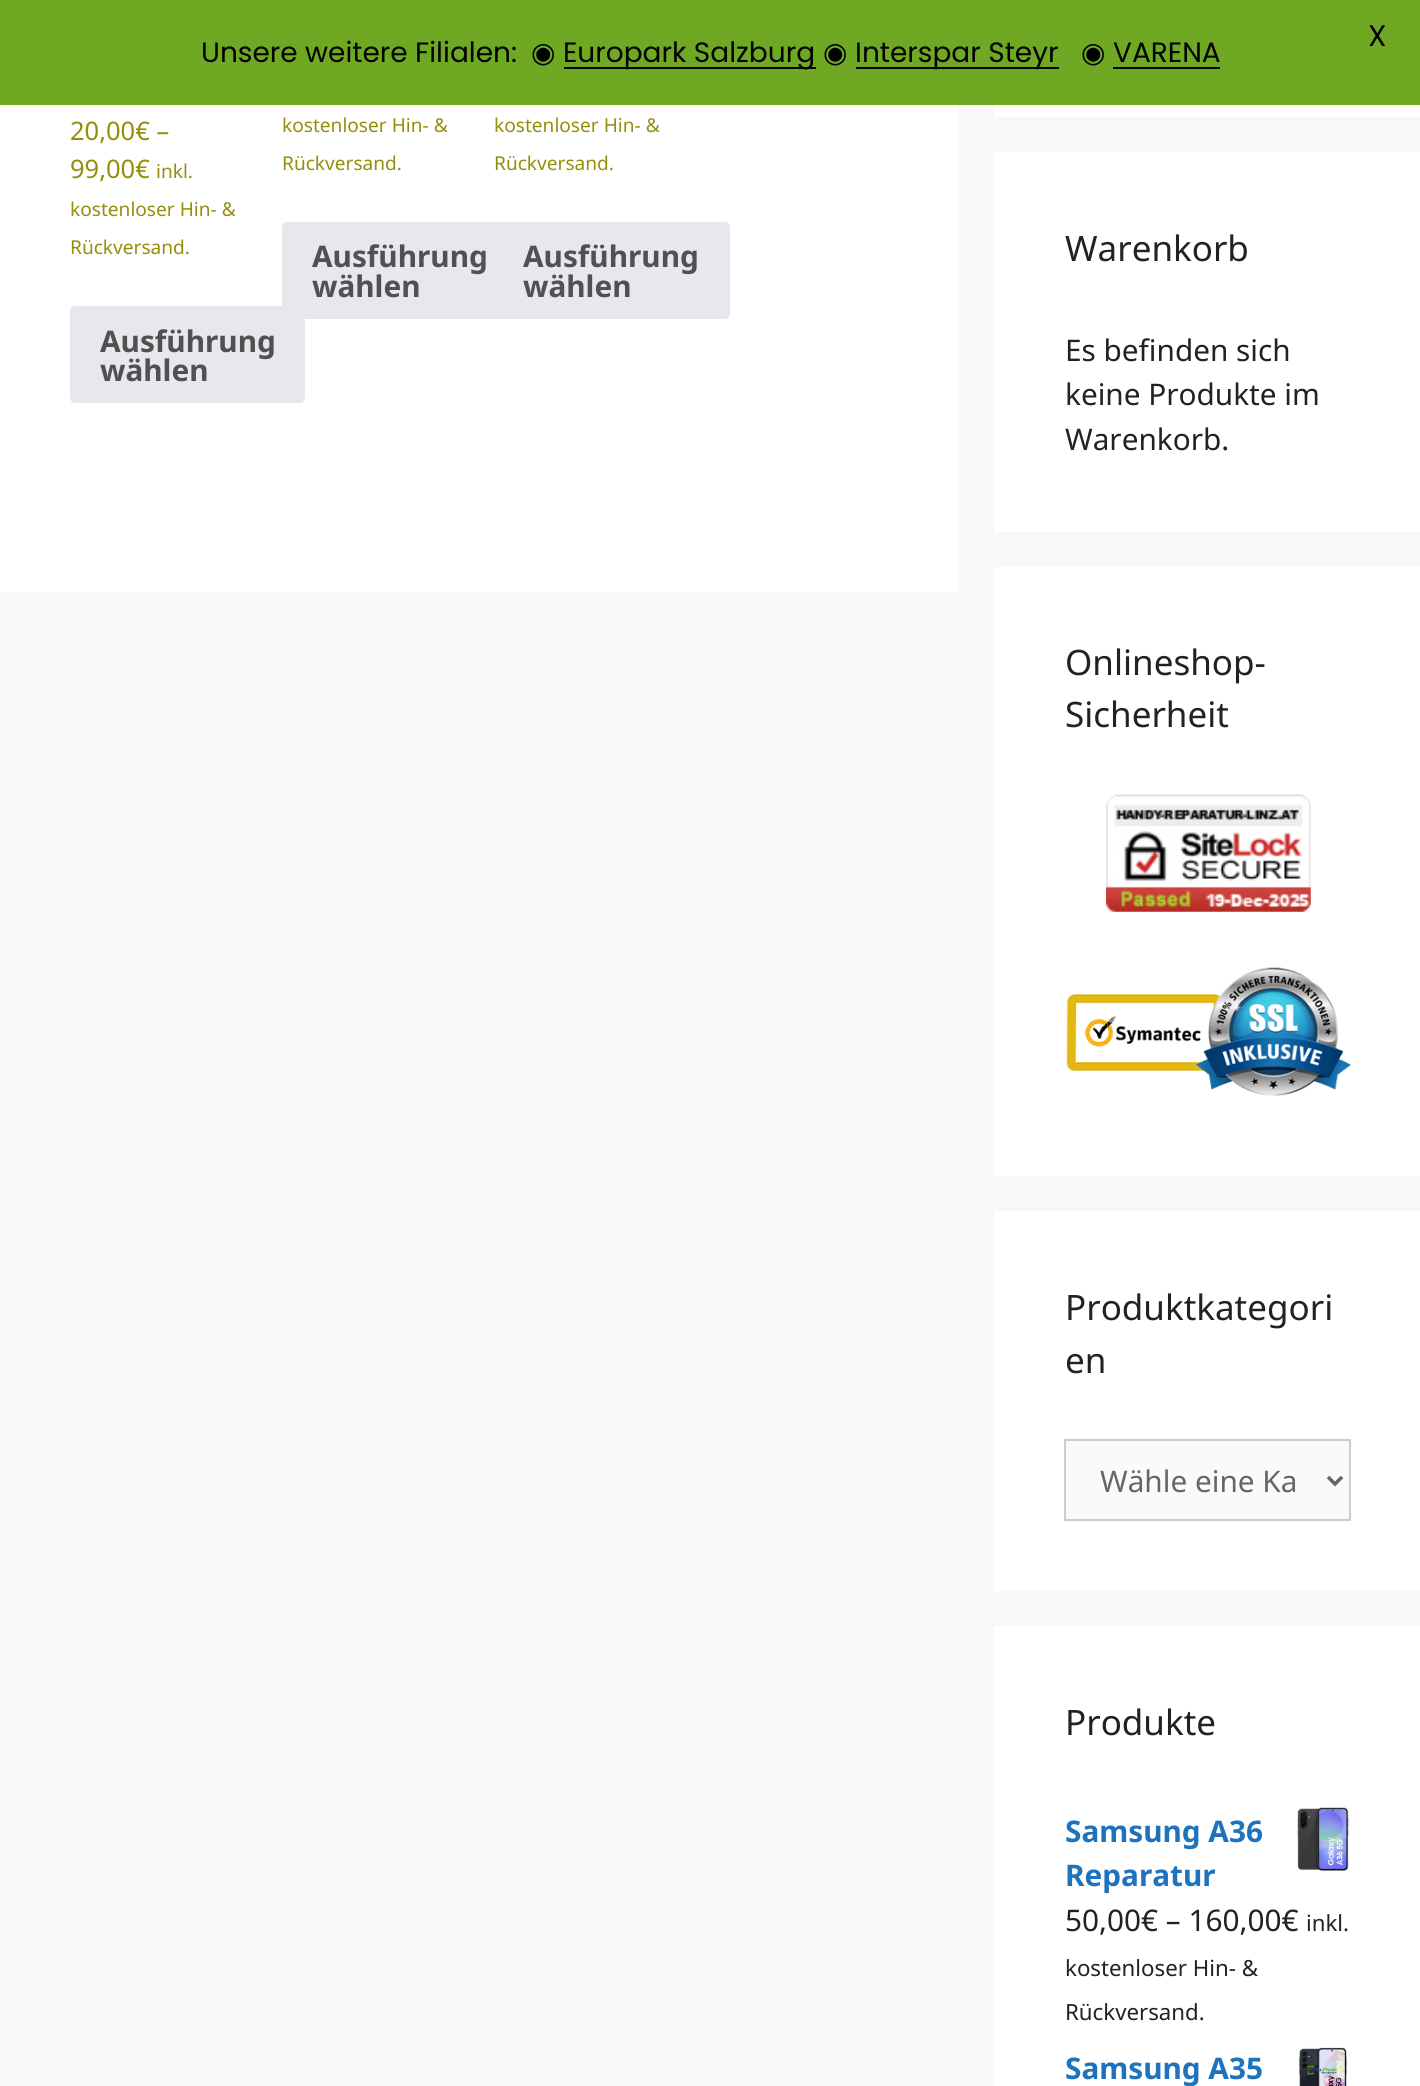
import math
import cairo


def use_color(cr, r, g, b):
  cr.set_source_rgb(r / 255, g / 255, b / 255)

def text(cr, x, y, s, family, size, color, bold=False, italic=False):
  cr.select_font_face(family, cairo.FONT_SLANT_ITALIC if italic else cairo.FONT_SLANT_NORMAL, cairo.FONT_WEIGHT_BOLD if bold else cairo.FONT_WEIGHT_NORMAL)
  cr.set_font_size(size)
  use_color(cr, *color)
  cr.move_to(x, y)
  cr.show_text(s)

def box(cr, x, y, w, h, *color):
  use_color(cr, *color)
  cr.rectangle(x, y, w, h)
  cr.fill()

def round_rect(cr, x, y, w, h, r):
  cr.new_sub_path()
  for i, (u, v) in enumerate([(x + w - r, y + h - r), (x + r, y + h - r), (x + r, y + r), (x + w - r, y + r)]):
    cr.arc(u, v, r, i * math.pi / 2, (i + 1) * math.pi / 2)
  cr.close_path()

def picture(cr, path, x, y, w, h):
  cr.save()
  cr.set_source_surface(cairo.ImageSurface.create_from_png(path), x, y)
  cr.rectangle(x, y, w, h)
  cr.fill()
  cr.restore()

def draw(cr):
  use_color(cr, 247, 248, 249)
  cr.paint()
  box(cr, 0, 0, 1420, 105, 111, 168, 34)
  box(cr, 564, 67, 252, 2, 0, 0, 0)
  box(cr, 856, 67, 203, 2, 0, 0, 0)
  box(cr, 1113, 67, 107, 2, 0, 0, 0)
  box(cr, 0, 105, 959, 487, 255, 255, 255)
  use_color(cr, 233, 230, 237)
  round_rect(cr, 70, 306, 235, 97, 5)
  cr.fill()
  round_rect(cr, 282, 222, 236, 97, 5)
  cr.fill()
  round_rect(cr, 494, 222, 236, 97, 5)
  cr.fill()
  box(cr, 994, 105, 426, 12, 255, 255, 255)
  box(cr, 994, 152, 426, 380, 255, 255, 255)
  box(cr, 994, 567, 426, 609, 255, 255, 255)
  picture(cr, "img_01.png", 1106, 794, 205, 118)
  picture(cr, "img_02.png", 1064, 967, 287, 129)
  box(cr, 994, 1211, 426, 380, 255, 255, 255)
  use_color(cr, 250, 250, 250)
  cr.rectangle(1065, 1440, 285, 80)
  cr.fill_preserve()
  use_color(cr, 204, 204, 204)
  cr.stroke()
  cr.new_path()
  cr.move_to(1328, 1477)
  cr.line_to(1335, 1484)
  cr.line_to(1342, 1477)
  use_color(cr, 102, 102, 102)
  cr.set_line_width(3.5)
  cr.stroke()
  box(cr, 994, 1626, 426, 460, 255, 255, 255)
  picture(cr, "img_03.png", 1297, 1807, 52, 64)
  picture(cr, "img_04.png", 1298, 2047, 50, 39)
  text(cr, 1368, 46, "X", "Poppins", 29.75, (0, 0, 0))
  text(cr, 201, 62, "Unsere weitere Filialen:", "Poppins", 28, (0, 0, 0))
  text(cr, 531, 62, "◉", "DejaVu Sans", 28, (0, 0, 0))
  text(cr, 563, 62, "Europark Salzburg", "Poppins", 28, (0, 0, 0))
  text(cr, 823, 62, "◉", "DejaVu Sans", 28, (0, 0, 0))
  text(cr, 855, 62, "Interspar Steyr", "Poppins", 28, (0, 0, 0))
  text(cr, 1081, 62, "◉", "DejaVu Sans", 28, (0, 0, 0))
  text(cr, 1113, 62, "VARENA", "Poppins", 28, (0, 0, 0))
  text(cr, 70, 140, "20,00€ –", "Noto Sans", 25.5, (149, 142, 9))
  text(cr, 70, 178, "99,00€", "Noto Sans", 25.5, (149, 142, 9))
  text(cr, 156, 178, "inkl.", "Noto Sans", 19.1, (149, 142, 9))
  text(cr, 70, 216, "kostenloser Hin- &", "Noto Sans", 19.1, (149, 142, 9))
  text(cr, 70, 254, "Rückversand.", "Noto Sans", 19.1, (149, 142, 9))
  text(cr, 100, 352, "Ausführung", "Noto Sans", 29.75, (81, 81, 81), bold=True)
  text(cr, 100, 381, "wählen", "Noto Sans", 29.75, (81, 81, 81), bold=True)
  text(cr, 282, 132, "kostenloser Hin- &", "Noto Sans", 19.1, (149, 142, 9))
  text(cr, 282, 170, "Rückversand.", "Noto Sans", 19.1, (149, 142, 9))
  text(cr, 312, 267, "Ausführung", "Noto Sans", 29.75, (81, 81, 81), bold=True)
  text(cr, 312, 297, "wählen", "Noto Sans", 29.75, (81, 81, 81), bold=True)
  text(cr, 494, 132, "kostenloser Hin- &", "Noto Sans", 19.1, (149, 142, 9))
  text(cr, 494, 170, "Rückversand.", "Noto Sans", 19.1, (149, 142, 9))
  text(cr, 523, 267, "Ausführung", "Noto Sans", 29.75, (81, 81, 81), bold=True)
  text(cr, 523, 297, "wählen", "Noto Sans", 29.75, (81, 81, 81), bold=True)
  text(cr, 1065, 261, "Warenkorb", "Noto Sans", 35, (34, 34, 34))
  text(cr, 1065, 361, "Es befinden sich", "Noto Sans", 29.75, (34, 34, 34))
  text(cr, 1065, 405, "keine Produkte im", "Noto Sans", 29.75, (34, 34, 34))
  text(cr, 1065, 450, "Warenkorb.", "Noto Sans", 29.75, (34, 34, 34))
  text(cr, 1065, 675, "Onlineshop-", "Noto Sans", 35, (34, 34, 34))
  text(cr, 1065, 727, "Sicherheit", "Noto Sans", 35, (34, 34, 34))
  text(cr, 1065, 1320, "Produktkategori", "Noto Sans", 35, (34, 34, 34))
  text(cr, 1065, 1373, "en", "Noto Sans", 35, (34, 34, 34))
  text(cr, 1100, 1492, "Wähle eine Ka", "Noto Sans", 29.75, (102, 102, 102))
  text(cr, 1065, 1735, "Produkte", "Noto Sans", 35, (34, 34, 34))
  text(cr, 1065, 1842, "Samsung A36", "Noto Sans", 29.75, (30, 115, 190), bold=True)
  text(cr, 1065, 1886, "Reparatur", "Noto Sans", 29.75, (30, 115, 190), bold=True)
  text(cr, 1065, 1931, "50,00€ – 160,00€", "Noto Sans", 29.75, (34, 34, 34))
  text(cr, 1306, 1931, "inkl.", "Noto Sans", 22.25, (34, 34, 34))
  text(cr, 1065, 1976, "kostenloser Hin- &", "Noto Sans", 22.25, (34, 34, 34))
  text(cr, 1065, 2020, "Rückversand.", "Noto Sans", 22.25, (34, 34, 34))
  text(cr, 1065, 2079, "Samsung A35", "Noto Sans", 29.75, (30, 115, 190), bold=True)


surface = cairo.ImageSurface(cairo.FORMAT_RGB24, 1420, 2086)
cr = cairo.Context(surface)
options = cairo.FontOptions()
options.set_hint_metrics(cairo.HINT_METRICS_OFF)
options.set_hint_style(cairo.HINT_STYLE_NONE)
cr.set_font_options(options)
cr.set_miter_limit(4)
draw(cr)
surface.write_to_png("out.png")
